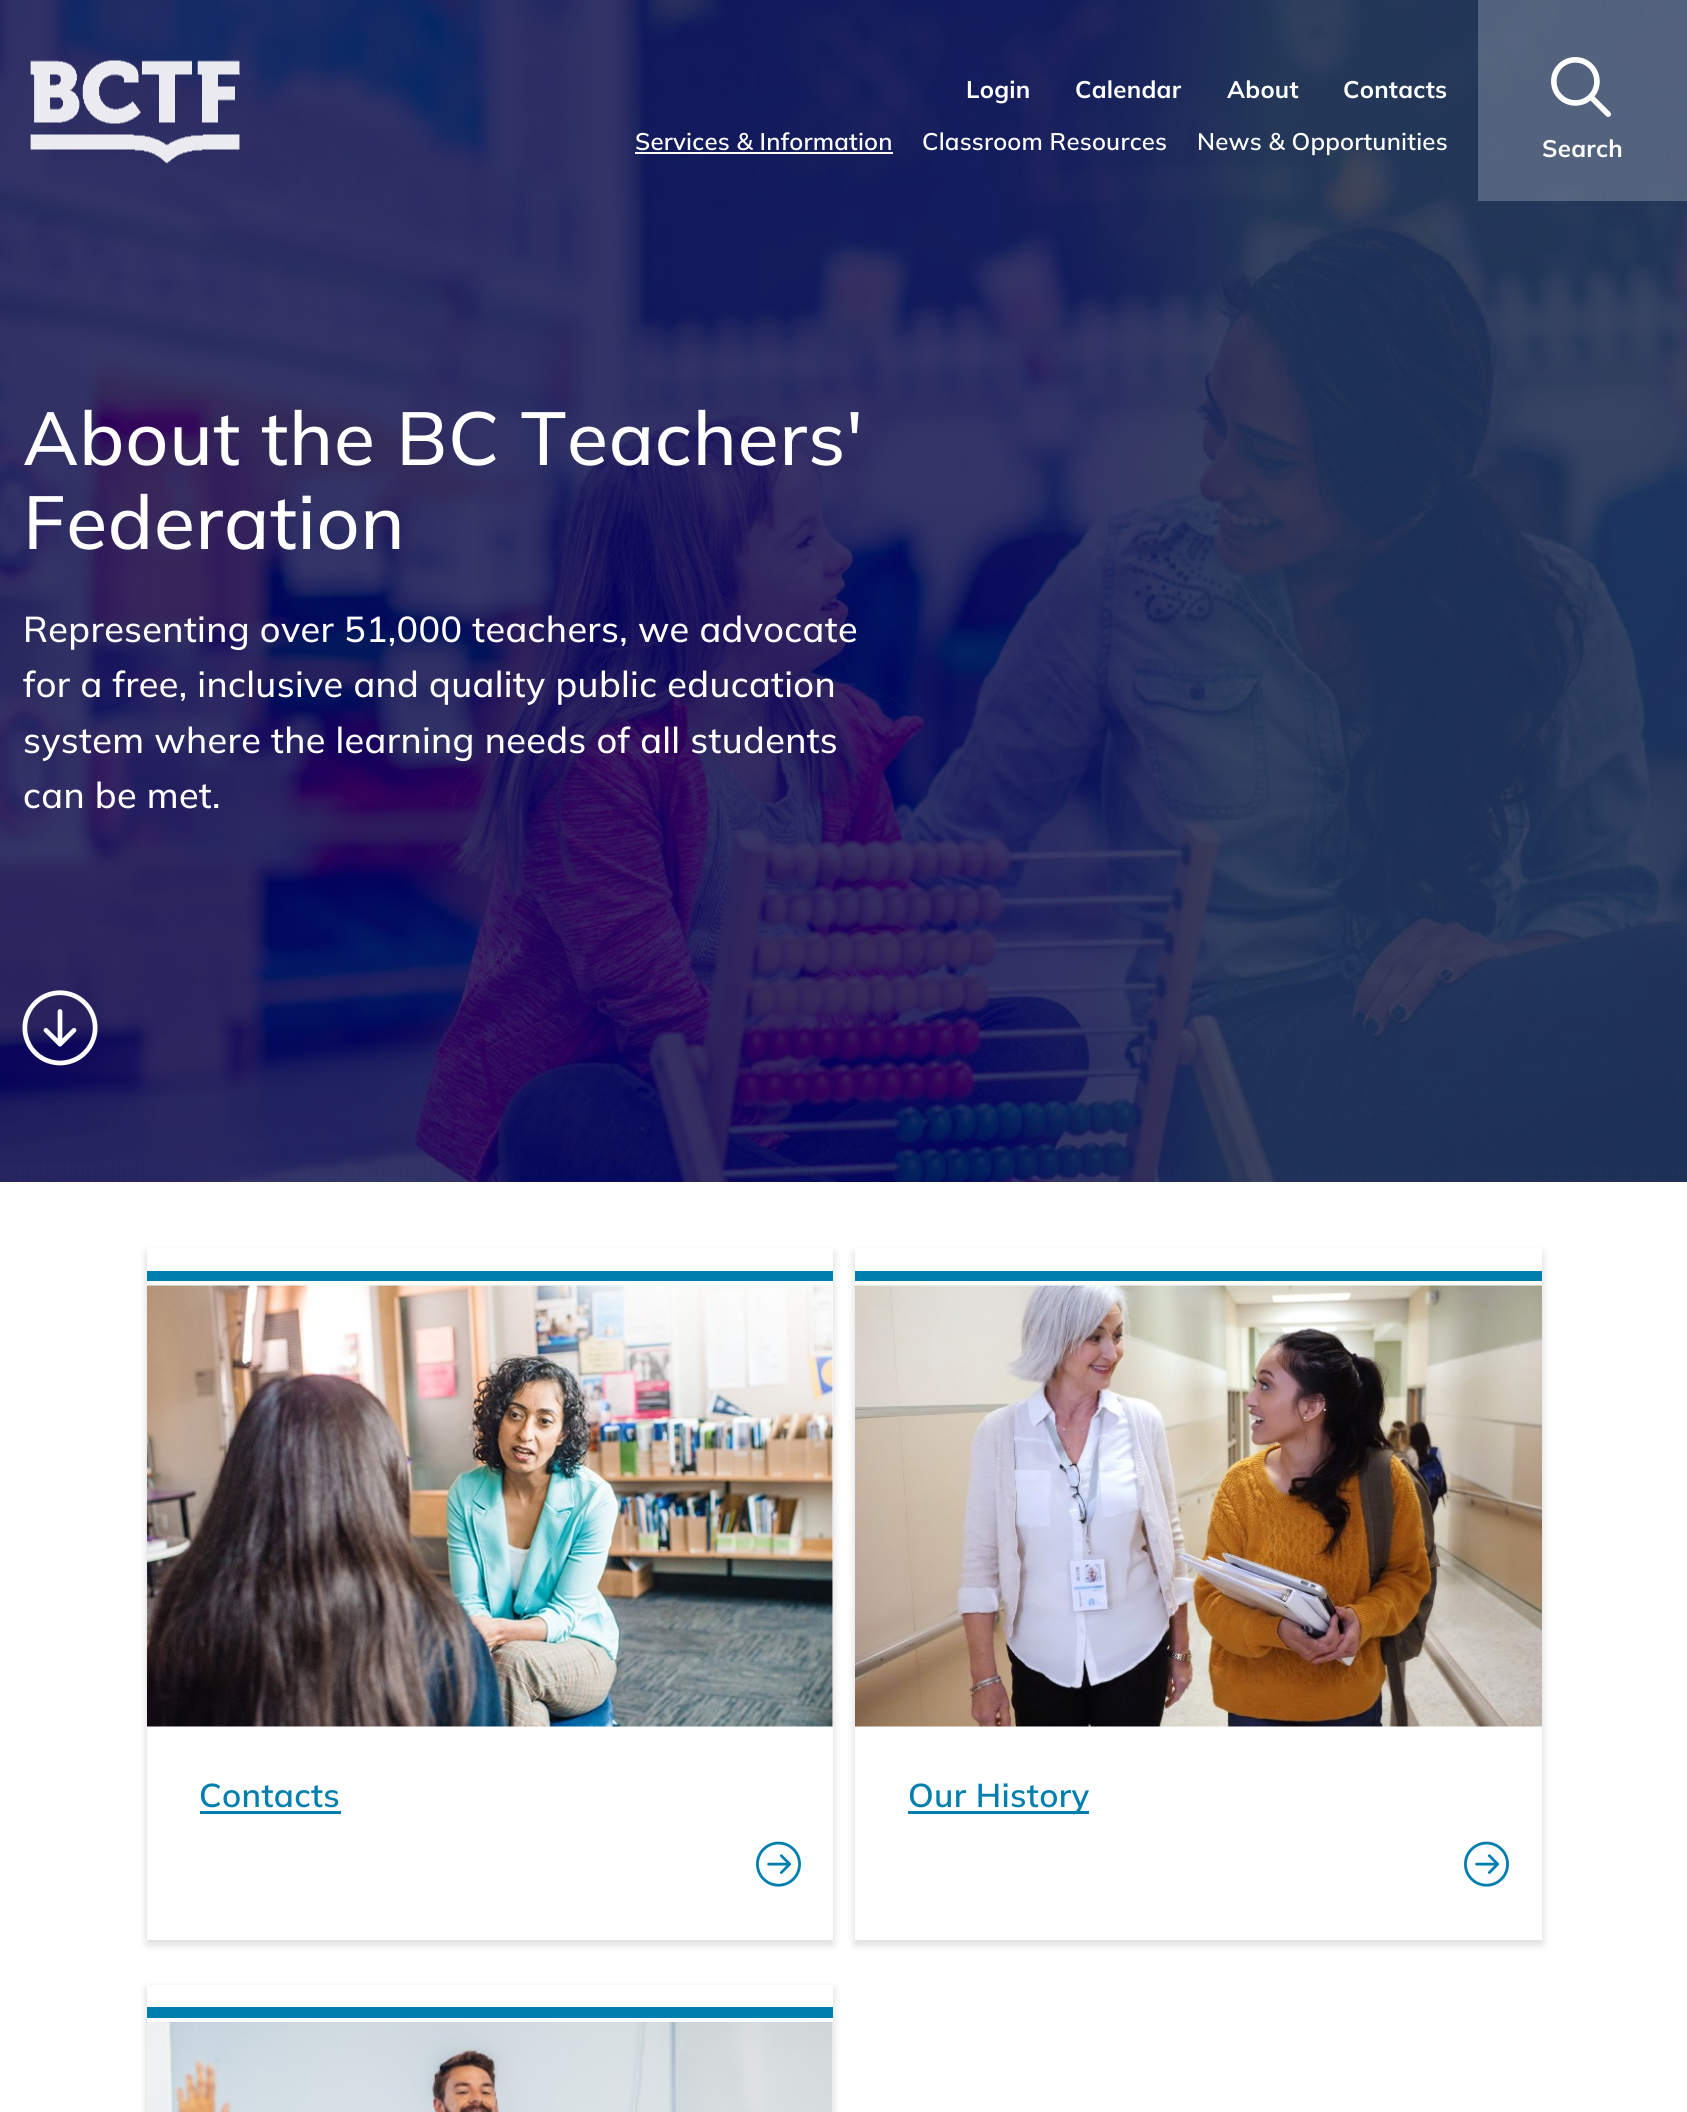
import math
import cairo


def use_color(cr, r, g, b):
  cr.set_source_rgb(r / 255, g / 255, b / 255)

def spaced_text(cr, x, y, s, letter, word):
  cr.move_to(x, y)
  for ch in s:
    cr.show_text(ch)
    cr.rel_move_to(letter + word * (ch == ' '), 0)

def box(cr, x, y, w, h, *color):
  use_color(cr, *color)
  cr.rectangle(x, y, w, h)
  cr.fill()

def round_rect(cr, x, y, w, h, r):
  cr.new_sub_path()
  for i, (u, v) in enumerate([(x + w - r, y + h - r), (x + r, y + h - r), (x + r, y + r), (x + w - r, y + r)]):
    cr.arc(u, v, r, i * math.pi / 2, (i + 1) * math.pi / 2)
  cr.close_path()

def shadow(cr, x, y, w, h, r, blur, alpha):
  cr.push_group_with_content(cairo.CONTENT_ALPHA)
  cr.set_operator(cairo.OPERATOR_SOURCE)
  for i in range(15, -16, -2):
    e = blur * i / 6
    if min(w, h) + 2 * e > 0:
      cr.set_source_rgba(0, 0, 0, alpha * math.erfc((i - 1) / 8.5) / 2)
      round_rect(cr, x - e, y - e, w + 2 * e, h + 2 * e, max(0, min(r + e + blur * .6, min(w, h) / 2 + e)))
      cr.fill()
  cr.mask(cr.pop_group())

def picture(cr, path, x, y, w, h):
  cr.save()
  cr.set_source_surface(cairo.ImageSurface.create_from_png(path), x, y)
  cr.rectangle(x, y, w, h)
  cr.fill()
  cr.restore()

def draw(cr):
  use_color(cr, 255, 255, 255)
  cr.paint()
  picture(cr, "img_03.png", 0, 0, 1687, 1182)
  picture(cr, "img_04.png", 0, 0, 1687, 1182)
  picture(cr, "img_01.png", 30, 60, 210, 104)
  box(cr, 635, 152, 258, 2, 255, 255, 255)
  cr.set_source_rgba(1, 1, 1, 0.22)
  cr.rectangle(1478, 0, 209, 201)
  cr.fill()
  picture(cr, "img_02.png", 1551, 57, 60, 60)
  picture(cr, "img_05.png", 22, 990, 76, 76)
  cr.save()
  cr.set_fill_rule(cairo.FILL_RULE_EVEN_ODD)
  cr.new_path()
  cr.move_to(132, 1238)
  cr.line_to(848, 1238)
  cr.line_to(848, 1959)
  cr.line_to(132, 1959)
  cr.close_path()
  cr.move_to(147, 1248)
  cr.line_to(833, 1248)
  cr.line_to(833, 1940)
  cr.line_to(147, 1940)
  cr.close_path()
  cr.clip()
  use_color(cr, 0, 0, 0)
  shadow(cr, 147, 1253, 686, 691, 0, 4.5, 0.16)
  cr.restore()
  box(cr, 147, 1271, 686, 10, 0, 127, 175)
  picture(cr, "img_06.png", 147, 1285, 686, 442)
  box(cr, 147, 1727, 686, 213, 255, 255, 255)
  box(cr, 200, 1811, 141, 3, 0, 127, 175)
  picture(cr, "img_07.png", 756, 1841, 45, 46)
  cr.save()
  cr.set_fill_rule(cairo.FILL_RULE_EVEN_ODD)
  cr.new_path()
  cr.move_to(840, 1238)
  cr.line_to(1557, 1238)
  cr.line_to(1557, 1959)
  cr.line_to(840, 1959)
  cr.close_path()
  cr.move_to(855, 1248)
  cr.line_to(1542, 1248)
  cr.line_to(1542, 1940)
  cr.line_to(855, 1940)
  cr.close_path()
  cr.clip()
  use_color(cr, 0, 0, 0)
  shadow(cr, 855, 1253, 687, 691, 0, 4.5, 0.16)
  cr.restore()
  box(cr, 855, 1271, 687, 10, 0, 127, 175)
  picture(cr, "img_08.png", 855, 1285, 687, 442)
  box(cr, 855, 1939, 687, 1, 255, 255, 255)
  box(cr, 908, 1811, 181, 3, 0, 127, 175)
  picture(cr, "img_07.png", 1464, 1841, 45, 46)
  cr.save()
  cr.set_fill_rule(cairo.FILL_RULE_EVEN_ODD)
  cr.new_path()
  cr.move_to(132, 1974)
  cr.line_to(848, 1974)
  cr.line_to(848, 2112)
  cr.line_to(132, 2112)
  cr.close_path()
  cr.move_to(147, 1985)
  cr.line_to(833, 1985)
  cr.line_to(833, 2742)
  cr.line_to(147, 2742)
  cr.close_path()
  cr.clip()
  use_color(cr, 0, 0, 0)
  shadow(cr, 147, 1989, 686, 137, 0, 4.5, 0.16)
  cr.restore()
  box(cr, 147, 2007, 686, 11, 0, 127, 175)
  picture(cr, "img_09.png", 147, 2022, 686, 90)
  cr.select_font_face("Mulish", cairo.FONT_SLANT_NORMAL, cairo.FONT_WEIGHT_BOLD)
  cr.set_font_size(24)
  use_color(cr, 255, 255, 255)
  spaced_text(cr, 966, 98, "Login", 0.25, 0)
  spaced_text(cr, 1075, 98, "Calendar", 0.25, 0)
  spaced_text(cr, 1227, 98, "About", 0.25, 0)
  spaced_text(cr, 1343, 98, "Contacts", 0.25, 0)
  cr.select_font_face("Mulish SemiBold")
  spaced_text(cr, 635, 150, "Services & Information", 0.2, 0)
  spaced_text(cr, 922, 150, "Classroom Resources", 0.2, 0)
  spaced_text(cr, 1197, 150, "News & Opportunities", 0.2, 0)
  cr.select_font_face("Mulish", cairo.FONT_SLANT_NORMAL, cairo.FONT_WEIGHT_BOLD)
  spaced_text(cr, 1542, 157, "Search", 0.25, 0)
  cr.select_font_face("Mulish Medium")
  cr.set_font_size(75)
  spaced_text(cr, 23, 465, "About the BC Teachers'", 0.75, 0)
  spaced_text(cr, 23, 549, "Federation", 0.75, 0)
  cr.set_font_size(36)
  spaced_text(cr, 23, 642, "Representing over 51,000 teachers, we advocate", 0.35, 0)
  spaced_text(cr, 23, 697, "for a free, inclusive and quality public education", 0.35, 0)
  spaced_text(cr, 23, 753, "system where the learning needs of all students", 0.35, 0)
  spaced_text(cr, 23, 808, "can be met.", 0.35, 0)
  cr.select_font_face("Mulish SemiBold")
  cr.set_font_size(33)
  use_color(cr, 0, 127, 175)
  spaced_text(cr, 199, 1807, "Contacts", 0.35, 0)
  spaced_text(cr, 908, 1807, "Our History", 0.35, 0)


surface = cairo.ImageSurface(cairo.FORMAT_RGB24, 1687, 2112)
cr = cairo.Context(surface)
options = cairo.FontOptions()
options.set_hint_metrics(cairo.HINT_METRICS_OFF)
options.set_hint_style(cairo.HINT_STYLE_NONE)
cr.set_font_options(options)
cr.set_miter_limit(4)
draw(cr)
surface.write_to_png("out.png")
